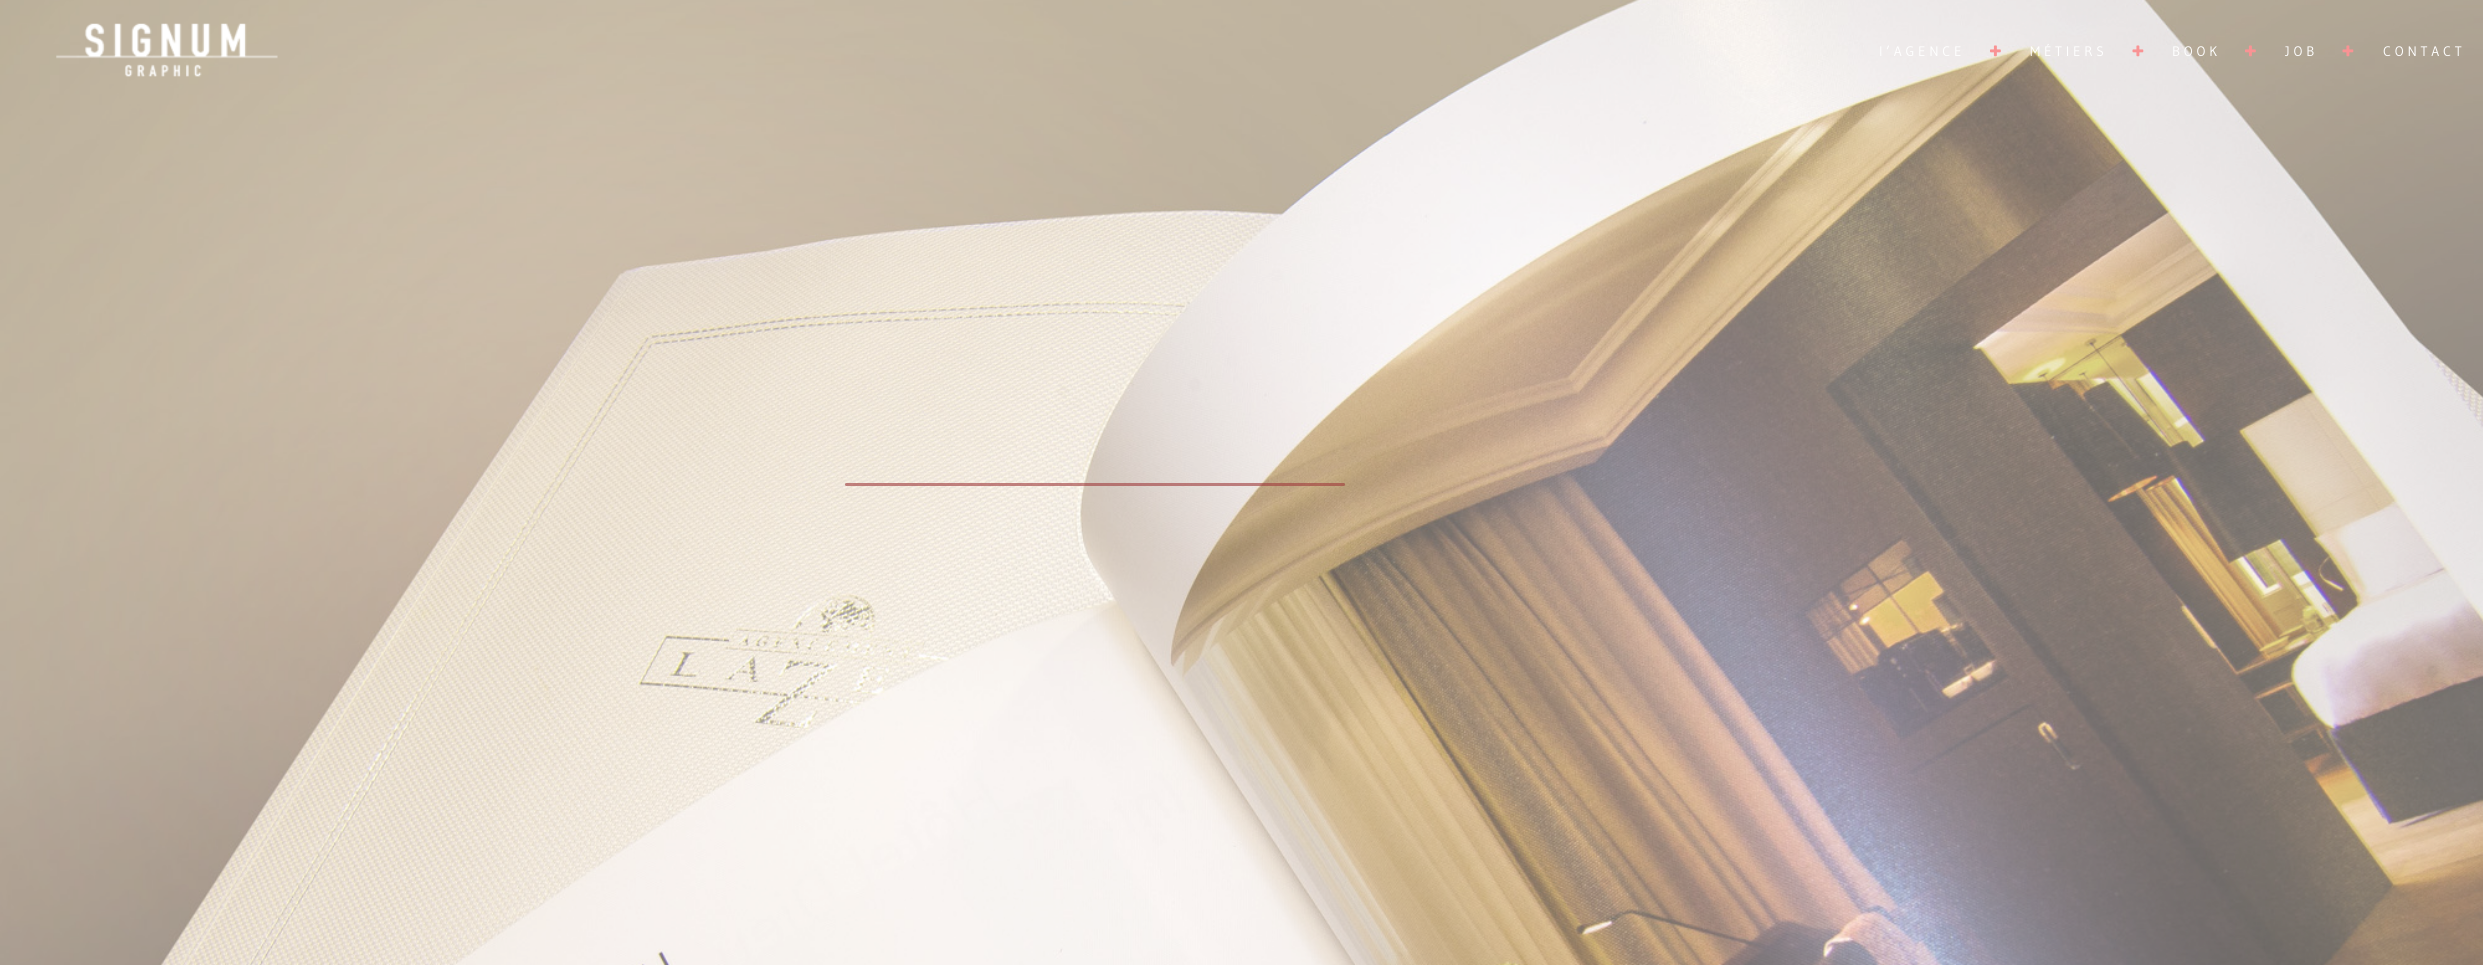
import math
import cairo


def use_color(cr, r, g, b):
  cr.set_source_rgb(r / 255, g / 255, b / 255)

def spaced_text(cr, x, y, s, letter, word):
  cr.move_to(x, y)
  for ch in s:
    cr.show_text(ch)
    cr.rel_move_to(letter + word * (ch == ' '), 0)

def round_rect(cr, x, y, w, h, r):
  cr.new_sub_path()
  for i, (u, v) in enumerate([(x + w - r, y + h - r), (x + r, y + h - r), (x + r, y + r), (x + w - r, y + r)]):
    cr.arc(u, v, r, i * math.pi / 2, (i + 1) * math.pi / 2)
  cr.close_path()

def picture(cr, path, x, y, w, h):
  cr.save()
  cr.set_source_surface(cairo.ImageSurface.create_from_png(path), x, y)
  cr.rectangle(x, y, w, h)
  cr.fill()
  cr.restore()

def draw(cr):
  use_color(cr, 255, 255, 255)
  cr.paint()
  picture(cr, "img_01.png", 0, 0, 2483, 965)
  picture(cr, "img_02.png", 56, 23, 222, 54)
  picture(cr, "img_03.png", 1990, 45, 11, 12)
  picture(cr, "img_04.png", 2132, 45, 12, 12)
  picture(cr, "img_05.png", 2245, 45, 11, 12)
  picture(cr, "img_06.png", 2342, 45, 12, 12)
  cr.set_source_rgba(0.067, 0.067, 0.067, 0.37)
  round_rect(cr, 845, 483, 500, 3, 1.5)
  cr.fill()
  cr.set_source_rgba(0.965, 0.325, 0.333, 0.37)
  round_rect(cr, 845, 483, 500, 3, 1.5)
  cr.fill()
  cr.select_font_face("Gudea")
  cr.set_font_size(13.75)
  use_color(cr, 255, 255, 255)
  spaced_text(cr, 1879, 56, "l’AGENCE", 3.75, 0)
  spaced_text(cr, 2030, 56, "MÉTIERS", 3.75, 0)
  spaced_text(cr, 2172, 56, "BOOK", 3.75, 0)
  spaced_text(cr, 2285, 56, "JOB", 3.75, 0)
  spaced_text(cr, 2383, 56, "CONTACT", 3.75, 0)


surface = cairo.ImageSurface(cairo.FORMAT_RGB24, 2483, 965)
cr = cairo.Context(surface)
options = cairo.FontOptions()
options.set_hint_metrics(cairo.HINT_METRICS_OFF)
options.set_hint_style(cairo.HINT_STYLE_NONE)
cr.set_font_options(options)
cr.set_miter_limit(4)
draw(cr)
surface.write_to_png("out.png")
